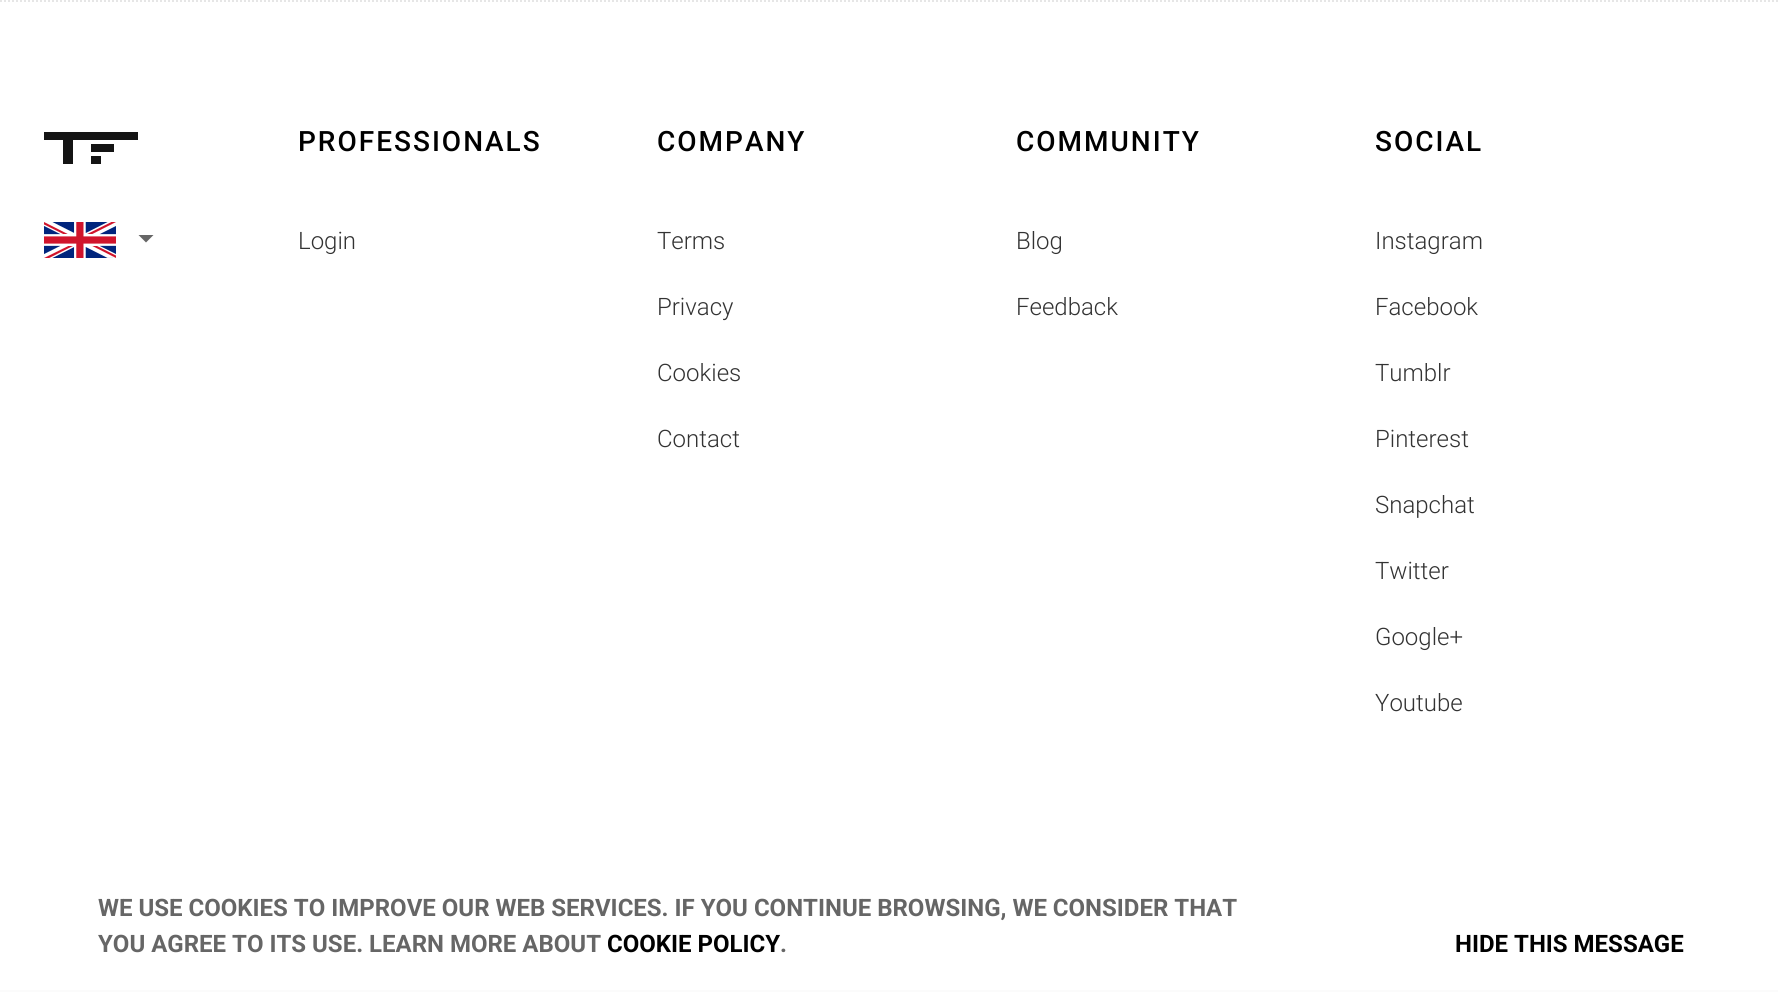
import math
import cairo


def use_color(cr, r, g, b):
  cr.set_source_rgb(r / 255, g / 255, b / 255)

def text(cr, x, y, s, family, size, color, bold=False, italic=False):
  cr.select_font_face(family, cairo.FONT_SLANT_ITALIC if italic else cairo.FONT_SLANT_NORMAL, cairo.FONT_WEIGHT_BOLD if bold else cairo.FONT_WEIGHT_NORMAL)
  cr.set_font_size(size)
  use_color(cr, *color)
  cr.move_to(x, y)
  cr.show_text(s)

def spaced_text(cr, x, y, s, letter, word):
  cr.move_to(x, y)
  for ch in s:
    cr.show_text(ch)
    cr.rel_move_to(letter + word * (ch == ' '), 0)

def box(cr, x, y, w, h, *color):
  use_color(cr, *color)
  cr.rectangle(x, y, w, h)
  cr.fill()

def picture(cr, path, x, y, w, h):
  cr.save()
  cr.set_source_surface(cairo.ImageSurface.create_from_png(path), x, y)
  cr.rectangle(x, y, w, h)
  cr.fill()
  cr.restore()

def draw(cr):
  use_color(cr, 255, 255, 255)
  cr.paint()
  cr.new_path()
  cr.move_to(0, 1)
  cr.line_to(1778, 1)
  use_color(cr, 230, 230, 230)
  cr.set_dash([2, 2])
  cr.stroke()
  box(cr, 91, 144, 23, 8, 20, 20, 20)
  box(cr, 91, 156, 10, 8, 20, 20, 20)
  cr.new_path()
  cr.move_to(44, 132)
  cr.line_to(44, 140)
  cr.line_to(63, 140)
  cr.line_to(63, 164)
  cr.line_to(73, 164)
  cr.line_to(73, 140)
  cr.line_to(138, 140)
  cr.line_to(138, 132)
  cr.close_path()
  cr.fill()
  picture(cr, "img_01.png", 44, 222, 72, 36)
  use_color(cr, 102, 102, 102)
  cr.new_path()
  cr.move_to(138.5, 235)
  cr.line_to(153.5, 235)
  cr.line_to(146, 242.5)
  cr.close_path()
  cr.fill()
  box(cr, 0, 990, 1778, 2, 251, 251, 251)
  cr.select_font_face("Roboto Medium")
  cr.set_font_size(28)
  use_color(cr, 0, 0, 0)
  spaced_text(cr, 298, 151, "PROFESSIONALS", 2, 0)
  text(cr, 298, 249, "Login", "Roboto Light", 24, (51, 51, 51))
  cr.select_font_face("Roboto Medium")
  cr.set_font_size(28)
  use_color(cr, 0, 0, 0)
  spaced_text(cr, 657, 151, "COMPANY", 2, 0)
  text(cr, 657, 249, "Terms", "Roboto Light", 24, (51, 51, 51))
  text(cr, 657, 315, "Privacy", "Roboto Light", 24, (51, 51, 51))
  text(cr, 657, 381, "Cookies", "Roboto Light", 24, (51, 51, 51))
  text(cr, 657, 447, "Contact", "Roboto Light", 24, (51, 51, 51))
  cr.select_font_face("Roboto Medium")
  cr.set_font_size(28)
  use_color(cr, 0, 0, 0)
  spaced_text(cr, 1016, 151, "COMMUNITY", 2, 0)
  text(cr, 1016, 249, "Blog", "Roboto Light", 24, (51, 51, 51))
  text(cr, 1016, 315, "Feedback", "Roboto Light", 24, (51, 51, 51))
  cr.select_font_face("Roboto Medium")
  cr.set_font_size(28)
  use_color(cr, 0, 0, 0)
  spaced_text(cr, 1375, 151, "SOCIAL", 2, 0)
  text(cr, 1375, 249, "Instagram", "Roboto Light", 24, (51, 51, 51))
  text(cr, 1375, 315, "Facebook", "Roboto Light", 24, (51, 51, 51))
  text(cr, 1375, 381, "Tumblr", "Roboto Light", 24, (51, 51, 51))
  text(cr, 1375, 447, "Pinterest", "Roboto Light", 24, (51, 51, 51))
  text(cr, 1375, 513, "Snapchat", "Roboto Light", 24, (51, 51, 51))
  text(cr, 1375, 579, "Twitter", "Roboto Light", 24, (51, 51, 51))
  text(cr, 1375, 645, "Google+", "Roboto Light", 24, (51, 51, 51))
  text(cr, 1375, 711, "Youtube", "Roboto Light", 24, (51, 51, 51))
  text(cr, 98, 916, "WE USE COOKIES TO IMPROVE OUR WEB SERVICES. IF YOU CONTINUE BROWSING, WE CONSIDER THAT", "Roboto", 24, (102, 102, 102), bold=True)
  text(cr, 98, 952, "YOU AGREE TO ITS USE. LEARN MORE ABOUT", "Roboto", 24, (102, 102, 102), bold=True)
  text(cr, 607, 952, "COOKIE POLICY", "Roboto", 24, (0, 0, 0), bold=True)
  text(cr, 780, 952, ".", "Roboto", 24, (102, 102, 102), bold=True)
  text(cr, 1455, 952, "HIDE THIS MESSAGE", "Roboto", 24, (0, 0, 0), bold=True)


surface = cairo.ImageSurface(cairo.FORMAT_RGB24, 1778, 992)
cr = cairo.Context(surface)
options = cairo.FontOptions()
options.set_hint_metrics(cairo.HINT_METRICS_OFF)
options.set_hint_style(cairo.HINT_STYLE_NONE)
cr.set_font_options(options)
cr.set_miter_limit(4)
draw(cr)
surface.write_to_png("out.png")
